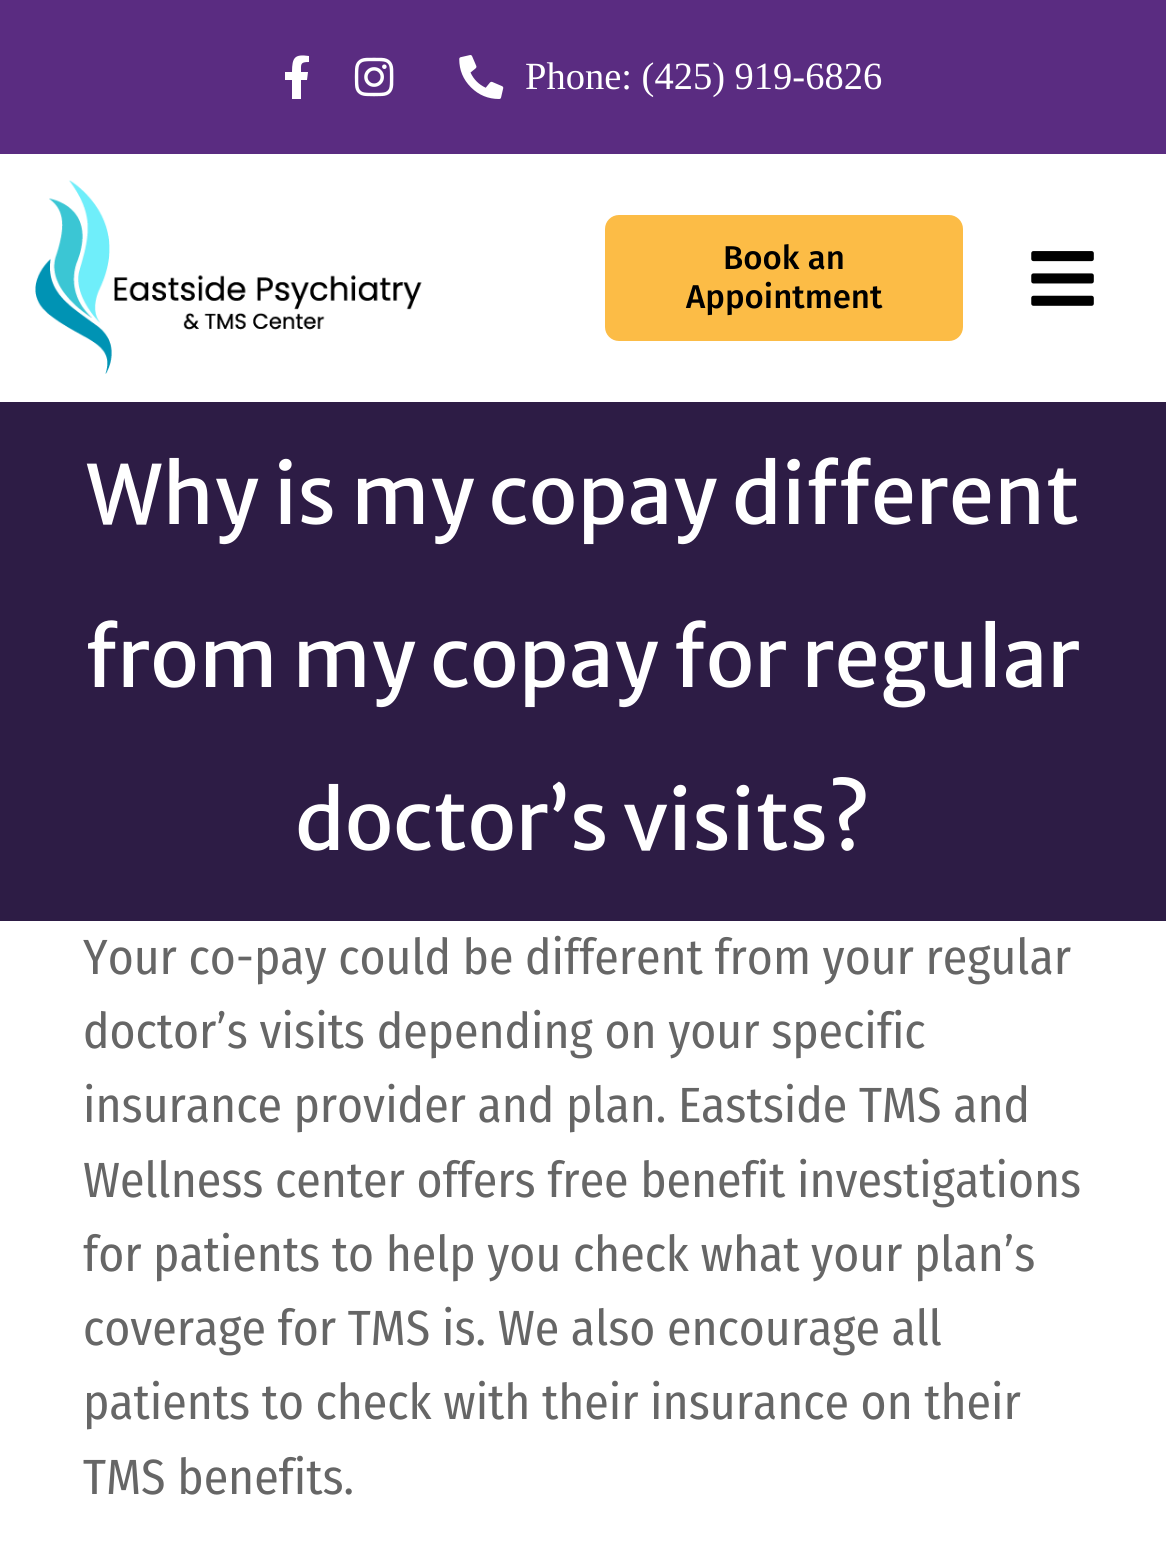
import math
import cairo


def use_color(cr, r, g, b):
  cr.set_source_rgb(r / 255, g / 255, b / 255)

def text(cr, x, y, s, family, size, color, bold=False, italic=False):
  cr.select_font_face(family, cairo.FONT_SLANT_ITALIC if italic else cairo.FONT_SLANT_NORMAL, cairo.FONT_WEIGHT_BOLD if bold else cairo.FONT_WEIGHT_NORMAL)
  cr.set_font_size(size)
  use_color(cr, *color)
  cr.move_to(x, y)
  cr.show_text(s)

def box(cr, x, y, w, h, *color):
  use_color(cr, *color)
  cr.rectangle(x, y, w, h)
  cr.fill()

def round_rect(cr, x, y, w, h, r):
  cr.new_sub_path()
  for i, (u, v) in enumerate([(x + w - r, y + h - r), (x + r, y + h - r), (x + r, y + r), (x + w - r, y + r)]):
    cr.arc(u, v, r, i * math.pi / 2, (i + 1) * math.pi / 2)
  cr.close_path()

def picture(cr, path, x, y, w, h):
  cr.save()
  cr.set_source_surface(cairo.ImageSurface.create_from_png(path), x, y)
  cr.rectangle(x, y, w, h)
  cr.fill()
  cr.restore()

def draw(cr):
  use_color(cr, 255, 255, 255)
  cr.paint()
  box(cr, 0, 0, 1166, 154, 90, 44, 129)
  use_color(cr, 255, 255, 255)
  cr.new_path()
  cr.move_to(307, 80)
  cr.line_to(301, 80)
  cr.line_to(301, 99)
  cr.line_to(292, 99)
  cr.line_to(292, 80)
  cr.line_to(285, 80)
  cr.line_to(285, 72)
  cr.line_to(292, 72)
  cr.curve_to(292, 57, 295, 54, 309, 56)
  cr.line_to(309, 62)
  cr.curve_to(300, 62, 301, 64, 301, 72)
  cr.line_to(308, 72)
  cr.close_path()
  cr.fill()
  picture(cr, "img_01.png", 354, 57, 40, 40)
  picture(cr, "img_02.png", 459, 55, 45, 44)
  picture(cr, "img_03.png", 35, 180, 387, 194)
  use_color(cr, 252, 188, 70)
  round_rect(cr, 605, 215, 358, 126, 14)
  cr.fill()
  picture(cr, "img_04.png", 1031, 251, 63, 55)
  box(cr, 0, 402, 1166, 519, 45, 28, 69)
  text(cr, 525, 89, "Phone: (425) 919-6826", "Liberation Serif", 38.5, (255, 255, 255))
  text(cr, 723, 269, "Book an", "Fira Sans Medium", 33, (0, 0, 0))
  text(cr, 686, 308, "Appointment", "Fira Sans Medium", 33, (0, 0, 0))
  text(cr, 86, 524, "Why is my copay different", "Merriweather Sans", 81.25, (255, 255, 255))
  text(cr, 85, 687, "from my copay for regular", "Merriweather Sans", 81.25, (255, 255, 255))
  text(cr, 295, 850, "doctor’s visits?", "Merriweather Sans", 81.25, (255, 255, 255))
  text(cr, 83, 974, "Your co-pay could be different from your regular", "Fira Sans Condensed", 49.5, (102, 102, 102))
  text(cr, 83, 1048, "doctor’s visits depending on your specific", "Fira Sans Condensed", 49.5, (102, 102, 102))
  text(cr, 83, 1122, "insurance provider and plan. Eastside TMS and", "Fira Sans Condensed", 49.5, (102, 102, 102))
  text(cr, 83, 1197, "Wellness center offers free benefit investigations", "Fira Sans Condensed", 49.5, (102, 102, 102))
  text(cr, 83, 1271, "for patients to help you check what your plan’s", "Fira Sans Condensed", 49.5, (102, 102, 102))
  text(cr, 83, 1345, "coverage for TMS is. We also encourage all", "Fira Sans Condensed", 49.5, (102, 102, 102))
  text(cr, 83, 1419, "patients to check with their insurance on their", "Fira Sans Condensed", 49.5, (102, 102, 102))
  text(cr, 83, 1494, "TMS benefits.", "Fira Sans Condensed", 49.5, (102, 102, 102))


surface = cairo.ImageSurface(cairo.FORMAT_RGB24, 1166, 1545)
cr = cairo.Context(surface)
options = cairo.FontOptions()
options.set_hint_metrics(cairo.HINT_METRICS_OFF)
options.set_hint_style(cairo.HINT_STYLE_NONE)
cr.set_font_options(options)
cr.set_miter_limit(4)
draw(cr)
surface.write_to_png("out.png")
